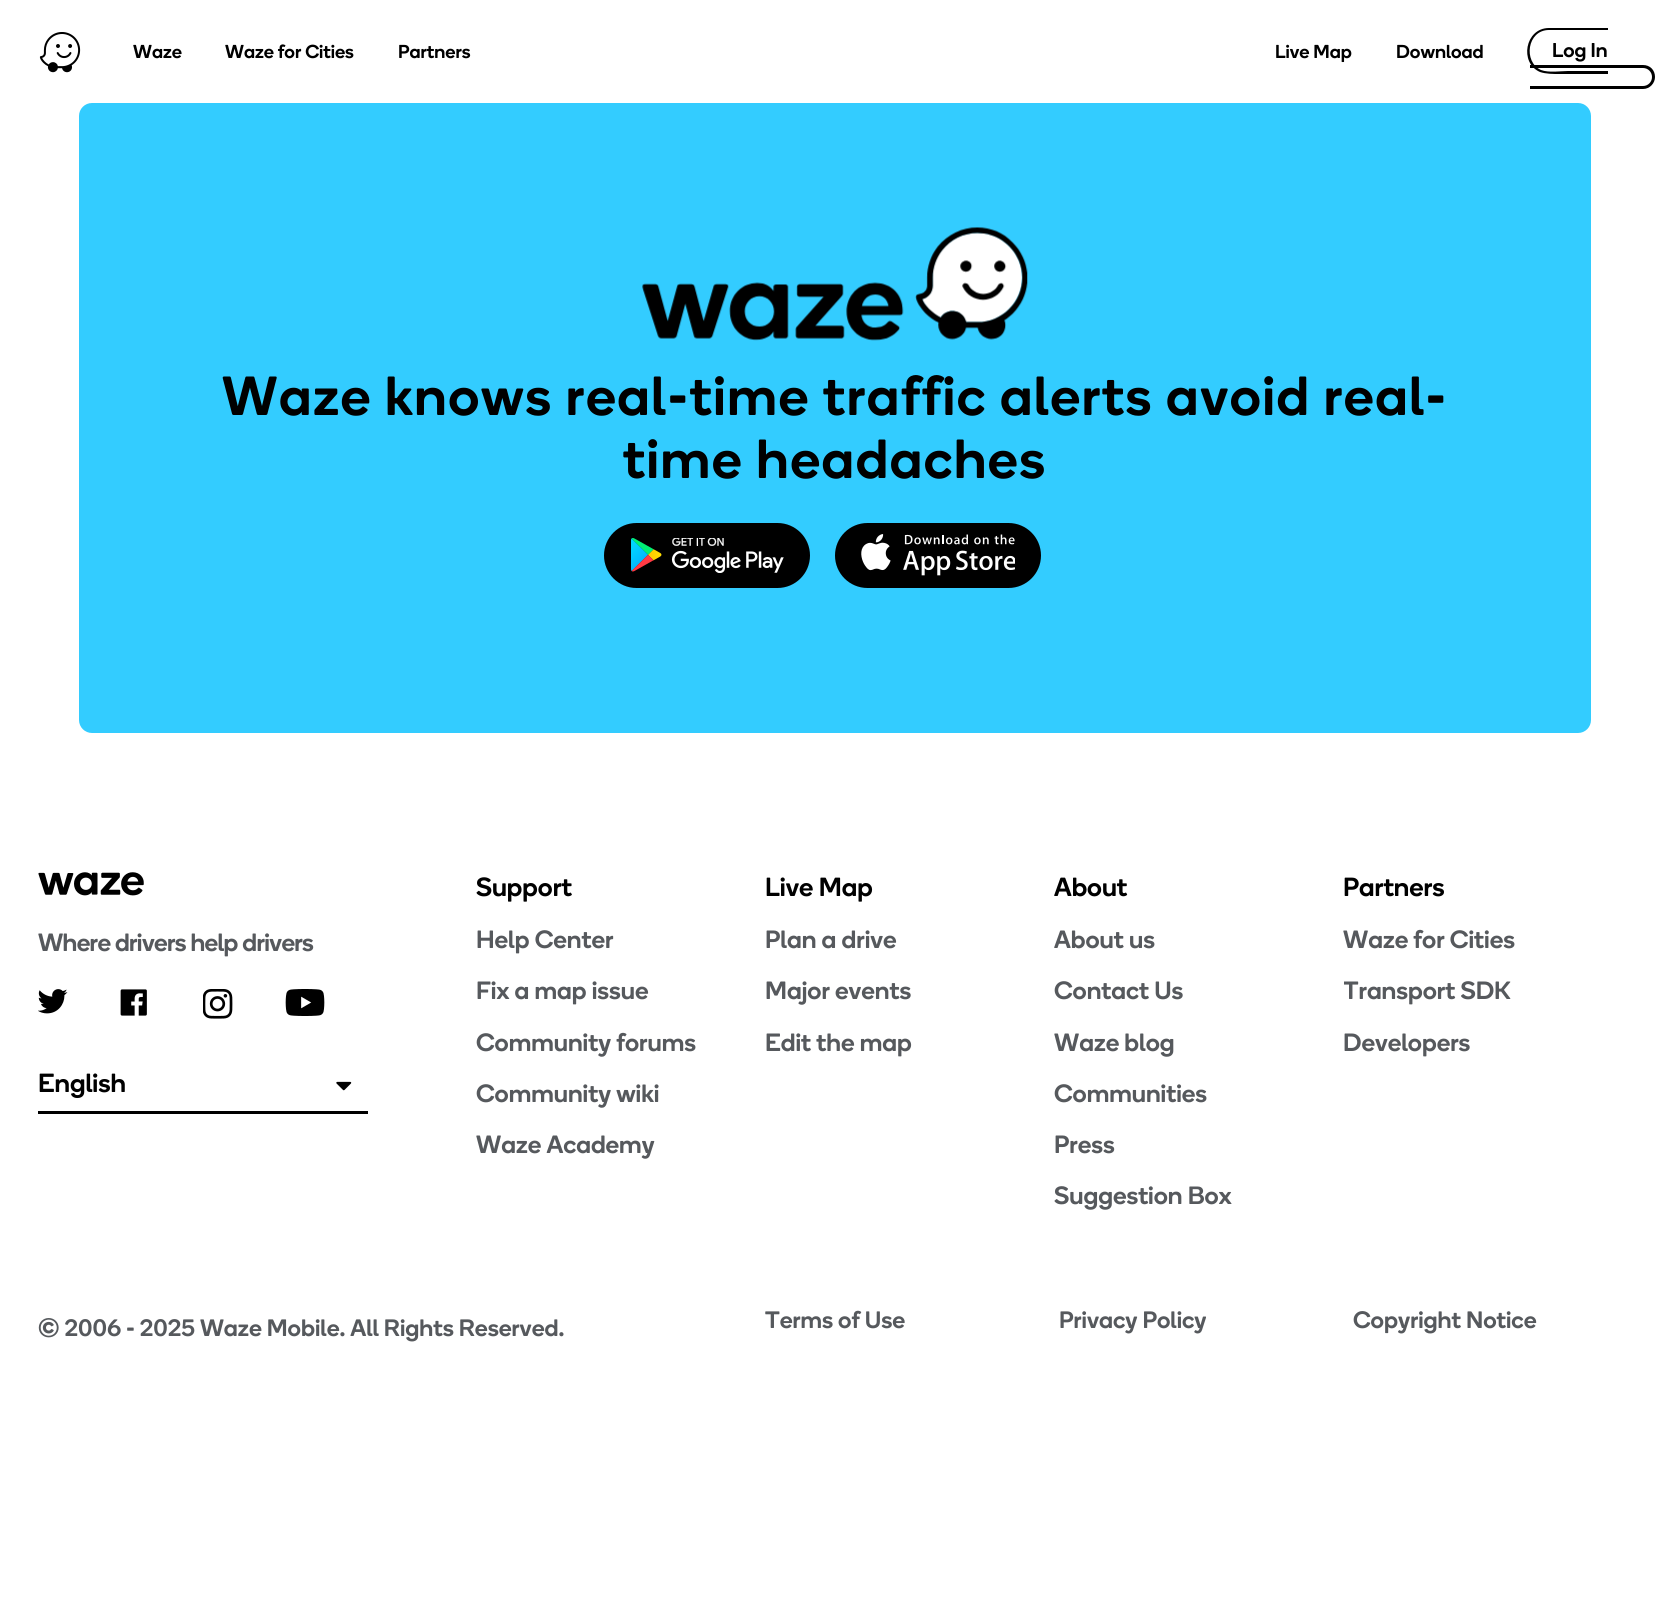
import math
import cairo


def use_color(cr, r, g, b):
  cr.set_source_rgb(r / 255, g / 255, b / 255)

def text(cr, x, y, s, family, size, color, bold=False, italic=False):
  cr.select_font_face(family, cairo.FONT_SLANT_ITALIC if italic else cairo.FONT_SLANT_NORMAL, cairo.FONT_WEIGHT_BOLD if bold else cairo.FONT_WEIGHT_NORMAL)
  cr.set_font_size(size)
  use_color(cr, *color)
  cr.move_to(x, y)
  cr.show_text(s)

def spaced_text(cr, x, y, s, letter, word):
  cr.move_to(x, y)
  for ch in s:
    cr.show_text(ch)
    cr.rel_move_to(letter + word * (ch == ' '), 0)

def box(cr, x, y, w, h, *color):
  use_color(cr, *color)
  cr.rectangle(x, y, w, h)
  cr.fill()

def round_rect(cr, x, y, w, h, r):
  cr.new_sub_path()
  for i, (u, v) in enumerate([(x + w - r, y + h - r), (x + r, y + h - r), (x + r, y + r), (x + w - r, y + r)]):
    cr.arc(u, v, r, i * math.pi / 2, (i + 1) * math.pi / 2)
  cr.close_path()

def picture(cr, path, x, y, w, h):
  cr.save()
  cr.set_source_surface(cairo.ImageSurface.create_from_png(path), x, y)
  cr.rectangle(x, y, w, h)
  cr.fill()
  cr.restore()

def draw(cr):
  use_color(cr, 255, 255, 255)
  cr.paint()
  picture(cr, "img_01.png", 39, 32, 42, 41)
  use_color(cr, 0, 0, 0)
  cr.set_fill_rule(cairo.FILL_RULE_EVEN_ODD)
  cr.new_path()
  cr.move_to(1549, 28)
  cr.line_to(1608, 28)
  cr.line_to(1608, 74)
  cr.line_to(1559, 74)
  cr.curve_to(1553, 74, 1546, 74, 1540, 72)
  cr.curve_to(1519, 63, 1525, 28, 1549, 28)
  cr.close_path()
  cr.move_to(1549, 30)
  cr.line_to(1608, 30)
  cr.line_to(1608, 71)
  cr.line_to(1568, 71)
  cr.curve_to(1561, 71, 1549, 73, 1541, 70)
  cr.curve_to(1523, 62, 1527, 30, 1549, 30)
  cr.close_path()
  cr.fill()
  cr.new_path()
  cr.move_to(1530, 65)
  cr.line_to(1643, 65)
  cr.curve_to(1650, 65, 1655, 70, 1655, 77)
  cr.curve_to(1655, 83, 1650, 89, 1643, 89)
  cr.line_to(1530, 89)
  cr.close_path()
  cr.move_to(1530, 68)
  cr.line_to(1643, 68)
  cr.curve_to(1648, 68, 1652, 72, 1652, 77)
  cr.curve_to(1652, 82, 1648, 86, 1643, 86)
  cr.line_to(1530, 86)
  cr.close_path()
  cr.fill()
  use_color(cr, 51, 204, 255)
  round_rect(cr, 79, 103, 1512, 630, 13)
  cr.fill()
  picture(cr, "img_02.png", 642, 227, 386, 114)
  use_color(cr, 0, 0, 0)
  round_rect(cr, 604, 523, 206, 65, 32.5)
  cr.fill()
  picture(cr, "img_03.png", 631, 538, 153, 35)
  round_rect(cr, 835, 523, 206, 65, 32.5)
  cr.fill()
  picture(cr, "img_04.png", 861, 534, 154, 42)
  picture(cr, "img_05.png", 38, 872, 106, 24)
  picture(cr, "img_06.png", 38, 989, 30, 25)
  picture(cr, "img_07.png", 120, 989, 27, 27)
  picture(cr, "img_08.png", 203, 989, 30, 30)
  picture(cr, "img_09.png", 285, 989, 40, 27)
  box(cr, 38, 1111, 330, 3, 0, 0, 0)
  picture(cr, "img_10.png", 336, 1081, 16, 10)
  text(cr, 133, 58, "Waze", "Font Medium", 18.75, (0, 0, 0))
  text(cr, 225, 58, "Waze for Cities", "Font Medium", 18.75, (0, 0, 0))
  text(cr, 398, 58, "Partners", "Font Medium", 18.75, (0, 0, 0))
  text(cr, 1275, 58, "Live Map", "Font Medium", 18.75, (0, 0, 0))
  text(cr, 1396, 58, "Download", "Font Medium", 18.75, (0, 0, 0))
  text(cr, 1552, 57, "Log In", "Font Medium", 20, (0, 0, 0))
  cr.set_font_size(55)
  spaced_text(cr, 222, 415, "Waze knows real-time traffic alerts avoid real-", 1.65, 0)
  spaced_text(cr, 623, 478, "time headaches", 1.65, 0)
  cr.set_font_size(25)
  use_color(cr, 86, 89, 93)
  spaced_text(cr, 38, 951, "Where drivers help drivers", -0.6, 0)
  text(cr, 38, 1092, "English", "Font Medium", 26.25, (0, 0, 0))
  text(cr, 476, 896, "Support", "Font Medium", 26.25, (0, 0, 0))
  text(cr, 476, 948, "Help Center", "Font Medium", 25, (86, 89, 93))
  text(cr, 476, 999, "Fix a map issue", "Font Medium", 25, (86, 89, 93))
  text(cr, 476, 1051, "Community forums", "Font Medium", 25, (86, 89, 93))
  text(cr, 476, 1102, "Community wiki", "Font Medium", 25, (86, 89, 93))
  text(cr, 476, 1153, "Waze Academy", "Font Medium", 25, (86, 89, 93))
  text(cr, 765, 896, "Live Map", "Font Medium", 26.25, (0, 0, 0))
  text(cr, 765, 948, "Plan a drive", "Font Medium", 25, (86, 89, 93))
  text(cr, 765, 999, "Major events", "Font Medium", 25, (86, 89, 93))
  text(cr, 765, 1051, "Edit the map", "Font Medium", 25, (86, 89, 93))
  text(cr, 1054, 896, "About", "Font Medium", 26.25, (0, 0, 0))
  text(cr, 1054, 948, "About us", "Font Medium", 25, (86, 89, 93))
  text(cr, 1054, 999, "Contact Us", "Font Medium", 25, (86, 89, 93))
  text(cr, 1054, 1051, "Waze blog", "Font Medium", 25, (86, 89, 93))
  text(cr, 1054, 1102, "Communities", "Font Medium", 25, (86, 89, 93))
  text(cr, 1054, 1153, "Press", "Font Medium", 25, (86, 89, 93))
  text(cr, 1054, 1204, "Suggestion Box", "Font Medium", 25, (86, 89, 93))
  text(cr, 1343, 896, "Partners", "Font Medium", 26.25, (0, 0, 0))
  text(cr, 1343, 948, "Waze for Cities", "Font Medium", 25, (86, 89, 93))
  cr.save()
  cr.set_fill_rule(cairo.FILL_RULE_WINDING)
  cr.rectangle(1344, 870, 289, 341)
  cr.clip()
  text(cr, 1343, 999, "Transport SDK", "Font Medium", 25, (86, 89, 93))
  cr.restore()
  text(cr, 1343, 1051, "Developers", "Font Medium", 25, (86, 89, 93))
  text(cr, 38, 1336, "© 2006 - 2025 Waze Mobile. All Rights Reserved.", "Font Medium", 23.75, (86, 89, 93))
  text(cr, 765, 1328, "Terms of Use", "Font Medium", 23.75, (86, 89, 93))
  text(cr, 1059, 1328, "Privacy Policy", "Font Medium", 23.75, (86, 89, 93))
  text(cr, 1353, 1328, "Copyright Notice", "Font Medium", 23.75, (86, 89, 93))


surface = cairo.ImageSurface(cairo.FORMAT_RGB24, 1669, 1613)
cr = cairo.Context(surface)
options = cairo.FontOptions()
options.set_hint_metrics(cairo.HINT_METRICS_OFF)
options.set_hint_style(cairo.HINT_STYLE_NONE)
cr.set_font_options(options)
cr.set_miter_limit(4)
draw(cr)
surface.write_to_png("out.png")
